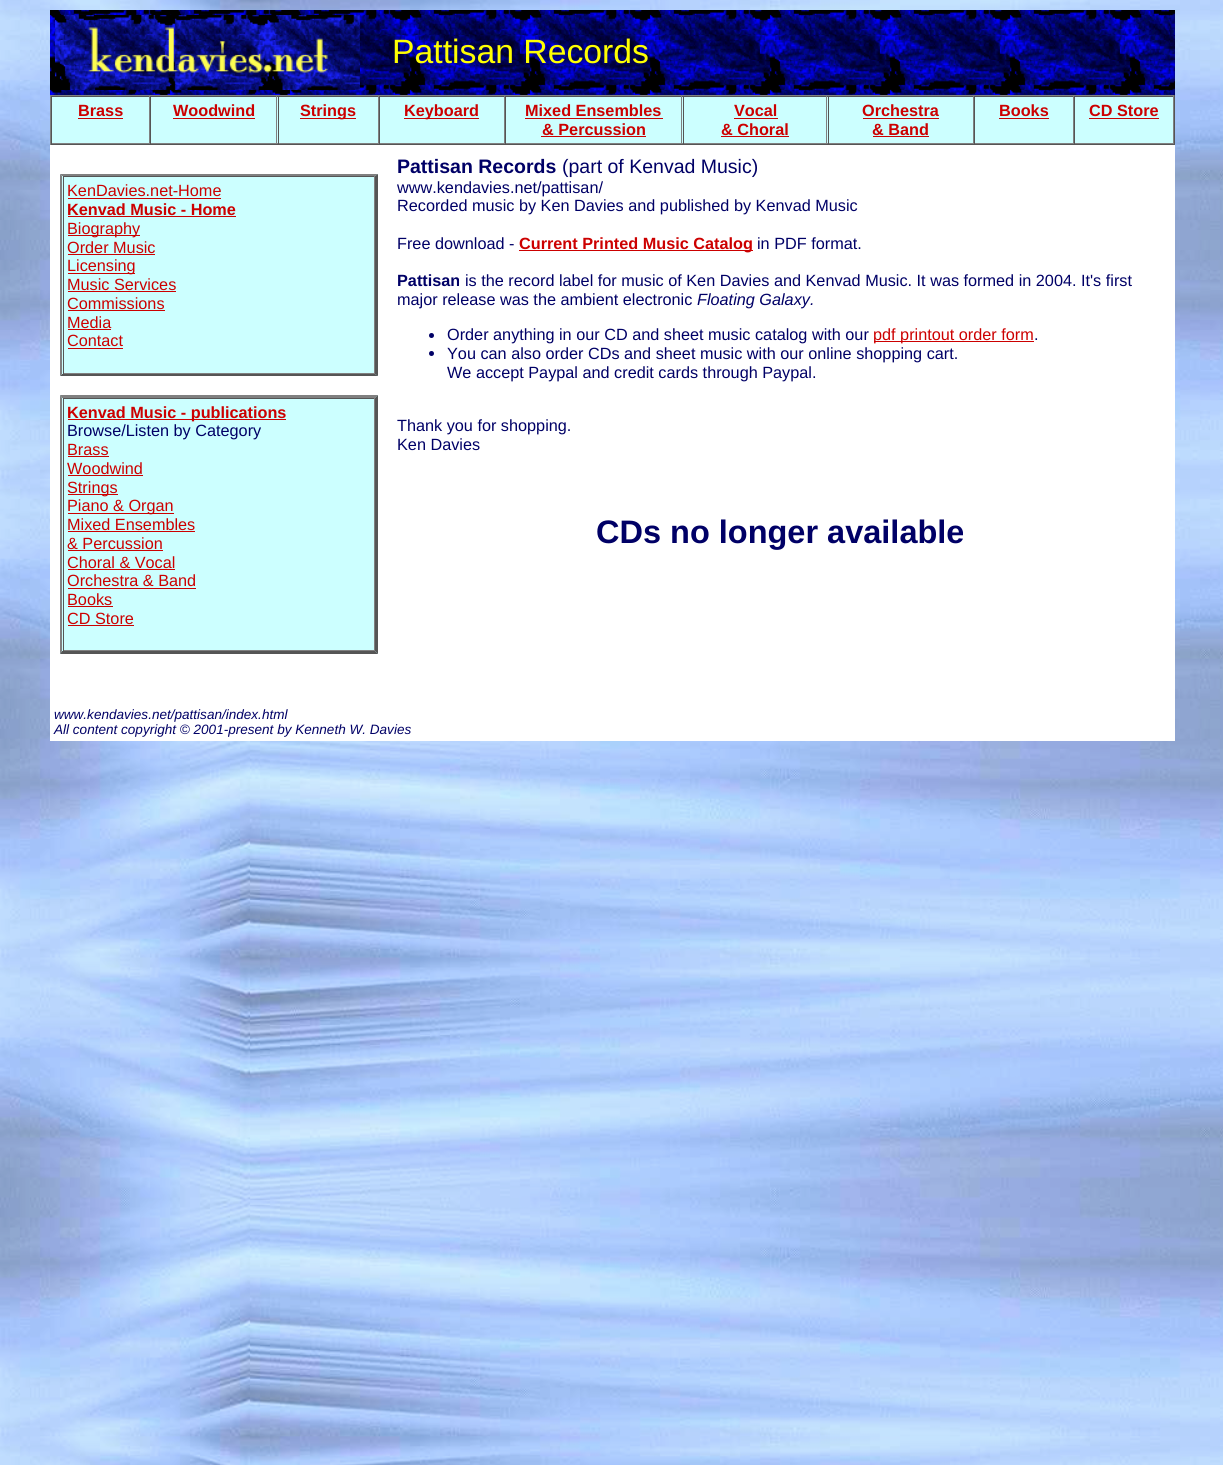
import math
import cairo


def use_color(cr, r, g, b):
  cr.set_source_rgb(r / 255, g / 255, b / 255)

def text(cr, x, y, s, family, size, color, bold=False, italic=False):
  cr.select_font_face(family, cairo.FONT_SLANT_ITALIC if italic else cairo.FONT_SLANT_NORMAL, cairo.FONT_WEIGHT_BOLD if bold else cairo.FONT_WEIGHT_NORMAL)
  cr.set_font_size(size)
  use_color(cr, *color)
  cr.move_to(x, y)
  cr.show_text(s)

def box(cr, x, y, w, h, *color):
  use_color(cr, *color)
  cr.rectangle(x, y, w, h)
  cr.fill()

def picture(cr, path, x, y, w, h):
  cr.save()
  cr.set_source_surface(cairo.ImageSurface.create_from_png(path), x, y)
  cr.rectangle(x, y, w, h)
  cr.fill()
  cr.restore()

def draw(cr):
  use_color(cr, 255, 255, 255)
  cr.paint()
  picture(cr, "img_01.png", 0, 0, 1223, 1465)
  picture(cr, "img_02.png", 50, 10, 1125, 85)
  picture(cr, "img_03.png", 55, 15, 305, 75)
  box(cr, 52, 97, 1121, 46, 204, 255, 255)
  box(cr, 50, 95, 1125, 1, 128, 128, 128)
  box(cr, 1174, 95, 1, 50, 85, 85, 85)
  box(cr, 50, 144, 1125, 1, 85, 85, 85)
  box(cr, 50, 95, 1, 50, 128, 128, 128)
  box(cr, 51, 96, 1123, 1, 85, 85, 85)
  box(cr, 149, 96, 1, 48, 128, 128, 128)
  box(cr, 51, 143, 99, 1, 128, 128, 128)
  box(cr, 51, 96, 1, 48, 85, 85, 85)
  box(cr, 78, 118, 45, 1, 204, 0, 0)
  box(cr, 276, 96, 1, 48, 128, 128, 128)
  box(cr, 150, 143, 128, 1, 128, 128, 128)
  box(cr, 150, 96, 1, 48, 85, 85, 85)
  box(cr, 173, 118, 82, 1, 204, 0, 0)
  box(cr, 378, 96, 1, 48, 128, 128, 128)
  box(cr, 278, 143, 101, 1, 128, 128, 128)
  box(cr, 278, 96, 1, 48, 85, 85, 85)
  box(cr, 300, 118, 56, 1, 204, 0, 0)
  box(cr, 504, 96, 1, 48, 128, 128, 128)
  box(cr, 379, 143, 126, 1, 128, 128, 128)
  box(cr, 379, 96, 1, 48, 85, 85, 85)
  box(cr, 404, 118, 75, 1, 204, 0, 0)
  box(cr, 681, 96, 1, 48, 128, 128, 128)
  box(cr, 505, 143, 178, 1, 128, 128, 128)
  box(cr, 505, 96, 1, 48, 85, 85, 85)
  box(cr, 525, 118, 138, 1, 204, 0, 0)
  box(cr, 541, 136, 105, 1, 204, 0, 0)
  box(cr, 826, 96, 1, 48, 128, 128, 128)
  box(cr, 683, 143, 145, 1, 128, 128, 128)
  box(cr, 683, 96, 1, 48, 85, 85, 85)
  box(cr, 734, 118, 44, 1, 204, 0, 0)
  box(cr, 721, 136, 68, 1, 204, 0, 0)
  box(cr, 973, 96, 1, 48, 128, 128, 128)
  box(cr, 828, 143, 146, 1, 128, 128, 128)
  box(cr, 828, 96, 1, 48, 85, 85, 85)
  box(cr, 863, 118, 76, 1, 204, 0, 0)
  box(cr, 873, 136, 56, 1, 204, 0, 0)
  box(cr, 1073, 96, 1, 48, 128, 128, 128)
  box(cr, 974, 143, 100, 1, 128, 128, 128)
  box(cr, 974, 96, 1, 48, 85, 85, 85)
  box(cr, 999, 118, 50, 1, 204, 0, 0)
  box(cr, 1173, 96, 1, 48, 128, 128, 128)
  box(cr, 1074, 143, 100, 1, 128, 128, 128)
  box(cr, 1074, 96, 1, 48, 85, 85, 85)
  box(cr, 1089, 118, 70, 1, 204, 0, 0)
  box(cr, 50, 145, 1125, 596, 255, 255, 255)
  box(cr, 60, 174, 318, 202, 204, 255, 255)
  use_color(cr, 128, 128, 128)
  cr.new_path()
  cr.move_to(60, 174)
  cr.line_to(378, 174)
  cr.line_to(375, 176)
  cr.line_to(62, 176)
  cr.close_path()
  cr.fill()
  use_color(cr, 85, 85, 85)
  cr.new_path()
  cr.move_to(378, 174)
  cr.line_to(378, 376)
  cr.line_to(375, 374)
  cr.line_to(375, 176)
  cr.close_path()
  cr.fill()
  cr.new_path()
  cr.move_to(378, 376)
  cr.line_to(60, 376)
  cr.line_to(62, 374)
  cr.line_to(375, 374)
  cr.close_path()
  cr.fill()
  use_color(cr, 128, 128, 128)
  cr.new_path()
  cr.move_to(60, 376)
  cr.line_to(60, 174)
  cr.line_to(62, 176)
  cr.line_to(62, 374)
  cr.close_path()
  cr.fill()
  box(cr, 63, 176, 312, 1, 85, 85, 85)
  box(cr, 374, 176, 1, 198, 128, 128, 128)
  box(cr, 63, 373, 312, 1, 128, 128, 128)
  box(cr, 63, 176, 1, 198, 85, 85, 85)
  box(cr, 68, 198, 153, 1, 204, 0, 0)
  box(cr, 68, 216, 168, 1, 204, 0, 0)
  box(cr, 68, 235, 72, 1, 204, 0, 0)
  box(cr, 68, 254, 87, 1, 204, 0, 0)
  box(cr, 68, 273, 67, 1, 204, 0, 0)
  box(cr, 68, 291, 108, 1, 204, 0, 0)
  box(cr, 68, 310, 97, 1, 204, 0, 0)
  box(cr, 68, 329, 43, 1, 204, 0, 0)
  box(cr, 68, 348, 55, 1, 204, 0, 0)
  box(cr, 60, 395, 318, 259, 204, 255, 255)
  use_color(cr, 128, 128, 128)
  cr.new_path()
  cr.move_to(60, 395)
  cr.line_to(378, 395)
  cr.line_to(375, 398)
  cr.line_to(62, 398)
  cr.close_path()
  cr.fill()
  use_color(cr, 85, 85, 85)
  cr.new_path()
  cr.move_to(378, 395)
  cr.line_to(378, 654)
  cr.line_to(375, 651)
  cr.line_to(375, 398)
  cr.close_path()
  cr.fill()
  cr.new_path()
  cr.move_to(378, 654)
  cr.line_to(60, 654)
  cr.line_to(62, 651)
  cr.line_to(375, 651)
  cr.close_path()
  cr.fill()
  use_color(cr, 128, 128, 128)
  cr.new_path()
  cr.move_to(60, 654)
  cr.line_to(60, 395)
  cr.line_to(62, 398)
  cr.line_to(62, 651)
  cr.close_path()
  cr.fill()
  box(cr, 63, 398, 312, 1, 85, 85, 85)
  box(cr, 374, 398, 1, 253, 128, 128, 128)
  box(cr, 63, 650, 312, 1, 128, 128, 128)
  box(cr, 63, 398, 1, 253, 85, 85, 85)
  box(cr, 68, 419, 218, 1, 204, 0, 0)
  box(cr, 68, 456, 41, 1, 204, 0, 0)
  box(cr, 68, 475, 75, 1, 204, 0, 0)
  box(cr, 68, 494, 50, 1, 204, 0, 0)
  box(cr, 68, 513, 106, 1, 204, 0, 0)
  box(cr, 68, 531, 127, 1, 204, 0, 0)
  box(cr, 68, 550, 95, 1, 204, 0, 0)
  box(cr, 68, 569, 107, 1, 204, 0, 0)
  box(cr, 68, 588, 128, 1, 204, 0, 0)
  box(cr, 68, 606, 45, 1, 204, 0, 0)
  box(cr, 68, 625, 66, 1, 204, 0, 0)
  box(cr, 519, 250, 234, 1, 204, 0, 0)
  use_color(cr, 0, 0, 102)
  cr.arc(431.5, 335.5, 2.5, 0, 2 * math.pi)
  cr.fill()
  box(cr, 874, 341, 160, 1, 204, 0, 0)
  use_color(cr, 0, 0, 102)
  cr.arc(431.5, 353.5, 2.5, 0, 2 * math.pi)
  cr.fill()
  text(cr, 392, 63, "Pattisan Records", "Liberation Sans", 33.75, (255, 255, 0))
  text(cr, 78, 116, "Brass", "Liberation Sans", 16.25, (204, 0, 0), bold=True)
  text(cr, 173, 116, "Woodwind", "Liberation Sans", 16.25, (204, 0, 0), bold=True)
  text(cr, 300, 116, "Strings", "Liberation Sans", 16.25, (204, 0, 0), bold=True)
  text(cr, 404, 116, "Keyboard", "Liberation Sans", 16.25, (204, 0, 0), bold=True)
  text(cr, 525, 116, "Mixed Ensembles", "Liberation Sans", 16.25, (204, 0, 0), bold=True)
  text(cr, 542, 135, "& Percussion", "Liberation Sans", 16.25, (204, 0, 0), bold=True)
  text(cr, 734, 116, "Vocal", "Liberation Sans", 16.25, (204, 0, 0), bold=True)
  text(cr, 721, 135, "& Choral", "Liberation Sans", 16.25, (204, 0, 0), bold=True)
  text(cr, 862, 116, "Orchestra", "Liberation Sans", 16.25, (204, 0, 0), bold=True)
  text(cr, 872, 135, "& Band", "Liberation Sans", 16.25, (204, 0, 0), bold=True)
  text(cr, 999, 116, "Books", "Liberation Sans", 16.25, (204, 0, 0), bold=True)
  text(cr, 1089, 116, "CD Store", "Liberation Sans", 16.25, (204, 0, 0), bold=True)
  text(cr, 67, 196, "KenDavies.net-Home", "Liberation Sans", 16.25, (204, 0, 0))
  text(cr, 67, 215, "Kenvad Music - Home", "Liberation Sans", 16.25, (204, 0, 0), bold=True)
  text(cr, 67, 234, "Biography", "Liberation Sans", 16.25, (204, 0, 0))
  text(cr, 67, 253, "Order Music", "Liberation Sans", 16.25, (204, 0, 0))
  text(cr, 67, 271, "Licensing", "Liberation Sans", 16.25, (204, 0, 0))
  text(cr, 67, 290, "Music Services", "Liberation Sans", 16.25, (204, 0, 0))
  text(cr, 67, 309, "Commissions", "Liberation Sans", 16.25, (204, 0, 0))
  text(cr, 67, 328, "Media", "Liberation Sans", 16.25, (204, 0, 0))
  text(cr, 67, 346, "Contact", "Liberation Sans", 16.25, (204, 0, 0))
  text(cr, 67, 418, "Kenvad Music - publications", "Liberation Sans", 16.25, (204, 0, 0), bold=True)
  text(cr, 67, 436, "Browse/Listen by Category", "Liberation Sans", 16.25, (0, 0, 102))
  text(cr, 67, 455, "Brass", "Liberation Sans", 16.25, (204, 0, 0))
  text(cr, 67, 474, "Woodwind", "Liberation Sans", 16.25, (204, 0, 0))
  text(cr, 67, 493, "Strings", "Liberation Sans", 16.25, (204, 0, 0))
  text(cr, 67, 511, "Piano & Organ", "Liberation Sans", 16.25, (204, 0, 0))
  text(cr, 67, 530, "Mixed Ensembles", "Liberation Sans", 16.25, (204, 0, 0))
  text(cr, 67, 549, "& Percussion", "Liberation Sans", 16.25, (204, 0, 0))
  text(cr, 67, 568, "Choral & Vocal", "Liberation Sans", 16.25, (204, 0, 0))
  text(cr, 67, 586, "Orchestra & Band", "Liberation Sans", 16.25, (204, 0, 0))
  text(cr, 67, 605, "Books", "Liberation Sans", 16.25, (204, 0, 0))
  text(cr, 67, 624, "CD Store", "Liberation Sans", 16.25, (204, 0, 0))
  text(cr, 397, 173, "Pattisan Records", "Liberation Sans", 19.5, (0, 0, 102), bold=True)
  text(cr, 562, 173, "(part of Kenvad Music)", "Liberation Sans", 19.5, (0, 0, 102))
  text(cr, 397, 193, "www.kendavies.net/pattisan/", "Liberation Sans", 16.25, (0, 0, 102))
  text(cr, 397, 211, "Recorded music by Ken Davies and published by Kenvad Music", "Liberation Sans", 16.25, (0, 0, 102))
  text(cr, 397, 249, "Free download -", "Liberation Sans", 16.25, (0, 0, 102))
  text(cr, 519, 249, "Current Printed Music Catalog", "Liberation Sans", 16.25, (204, 0, 0), bold=True)
  text(cr, 757, 249, "in PDF format.", "Liberation Sans", 16.25, (0, 0, 102))
  text(cr, 397, 286, "Pattisan", "Liberation Sans", 16.25, (0, 0, 102), bold=True)
  text(cr, 465, 286, "is the record label for music of Ken Davies and Kenvad Music. It was formed in 2004. It's first", "Liberation Sans", 16.25, (0, 0, 102))
  text(cr, 397, 305, "major release was the ambient electronic", "Liberation Sans", 16.25, (0, 0, 102))
  text(cr, 697, 305, "Floating Galaxy.", "Liberation Sans", 16.25, (0, 0, 102), italic=True)
  text(cr, 447, 340, "Order anything in our CD and sheet music catalog with our", "Liberation Sans", 16.25, (0, 0, 102))
  text(cr, 873, 340, "pdf printout order form", "Liberation Sans", 16.25, (204, 0, 0))
  text(cr, 1034, 340, ".", "Liberation Sans", 16.25, (0, 0, 102))
  text(cr, 447, 359, "You can also order CDs and sheet music with our online shopping cart.", "Liberation Sans", 16.25, (0, 0, 102))
  text(cr, 447, 378, "We accept Paypal and credit cards through Paypal.", "Liberation Sans", 16.25, (0, 0, 102))
  text(cr, 397, 431, "Thank you for shopping.", "Liberation Sans", 16.25, (0, 0, 102))
  text(cr, 397, 450, "Ken Davies", "Liberation Sans", 16.25, (0, 0, 102))
  text(cr, 596, 543, "CDs no longer available", "Liberation Sans", 32.5, (0, 0, 102), bold=True)
  text(cr, 54, 719, "www.kendavies.net/pattisan/index.html", "Liberation Sans", 13.55, (0, 0, 102), italic=True)
  text(cr, 54, 734, "All content copyright © 2001-present by Kenneth W. Davies", "Liberation Sans", 13.55, (0, 0, 102), italic=True)


surface = cairo.ImageSurface(cairo.FORMAT_RGB24, 1223, 1465)
cr = cairo.Context(surface)
options = cairo.FontOptions()
options.set_hint_metrics(cairo.HINT_METRICS_OFF)
options.set_hint_style(cairo.HINT_STYLE_NONE)
cr.set_font_options(options)
cr.set_miter_limit(4)
draw(cr)
surface.write_to_png("out.png")
